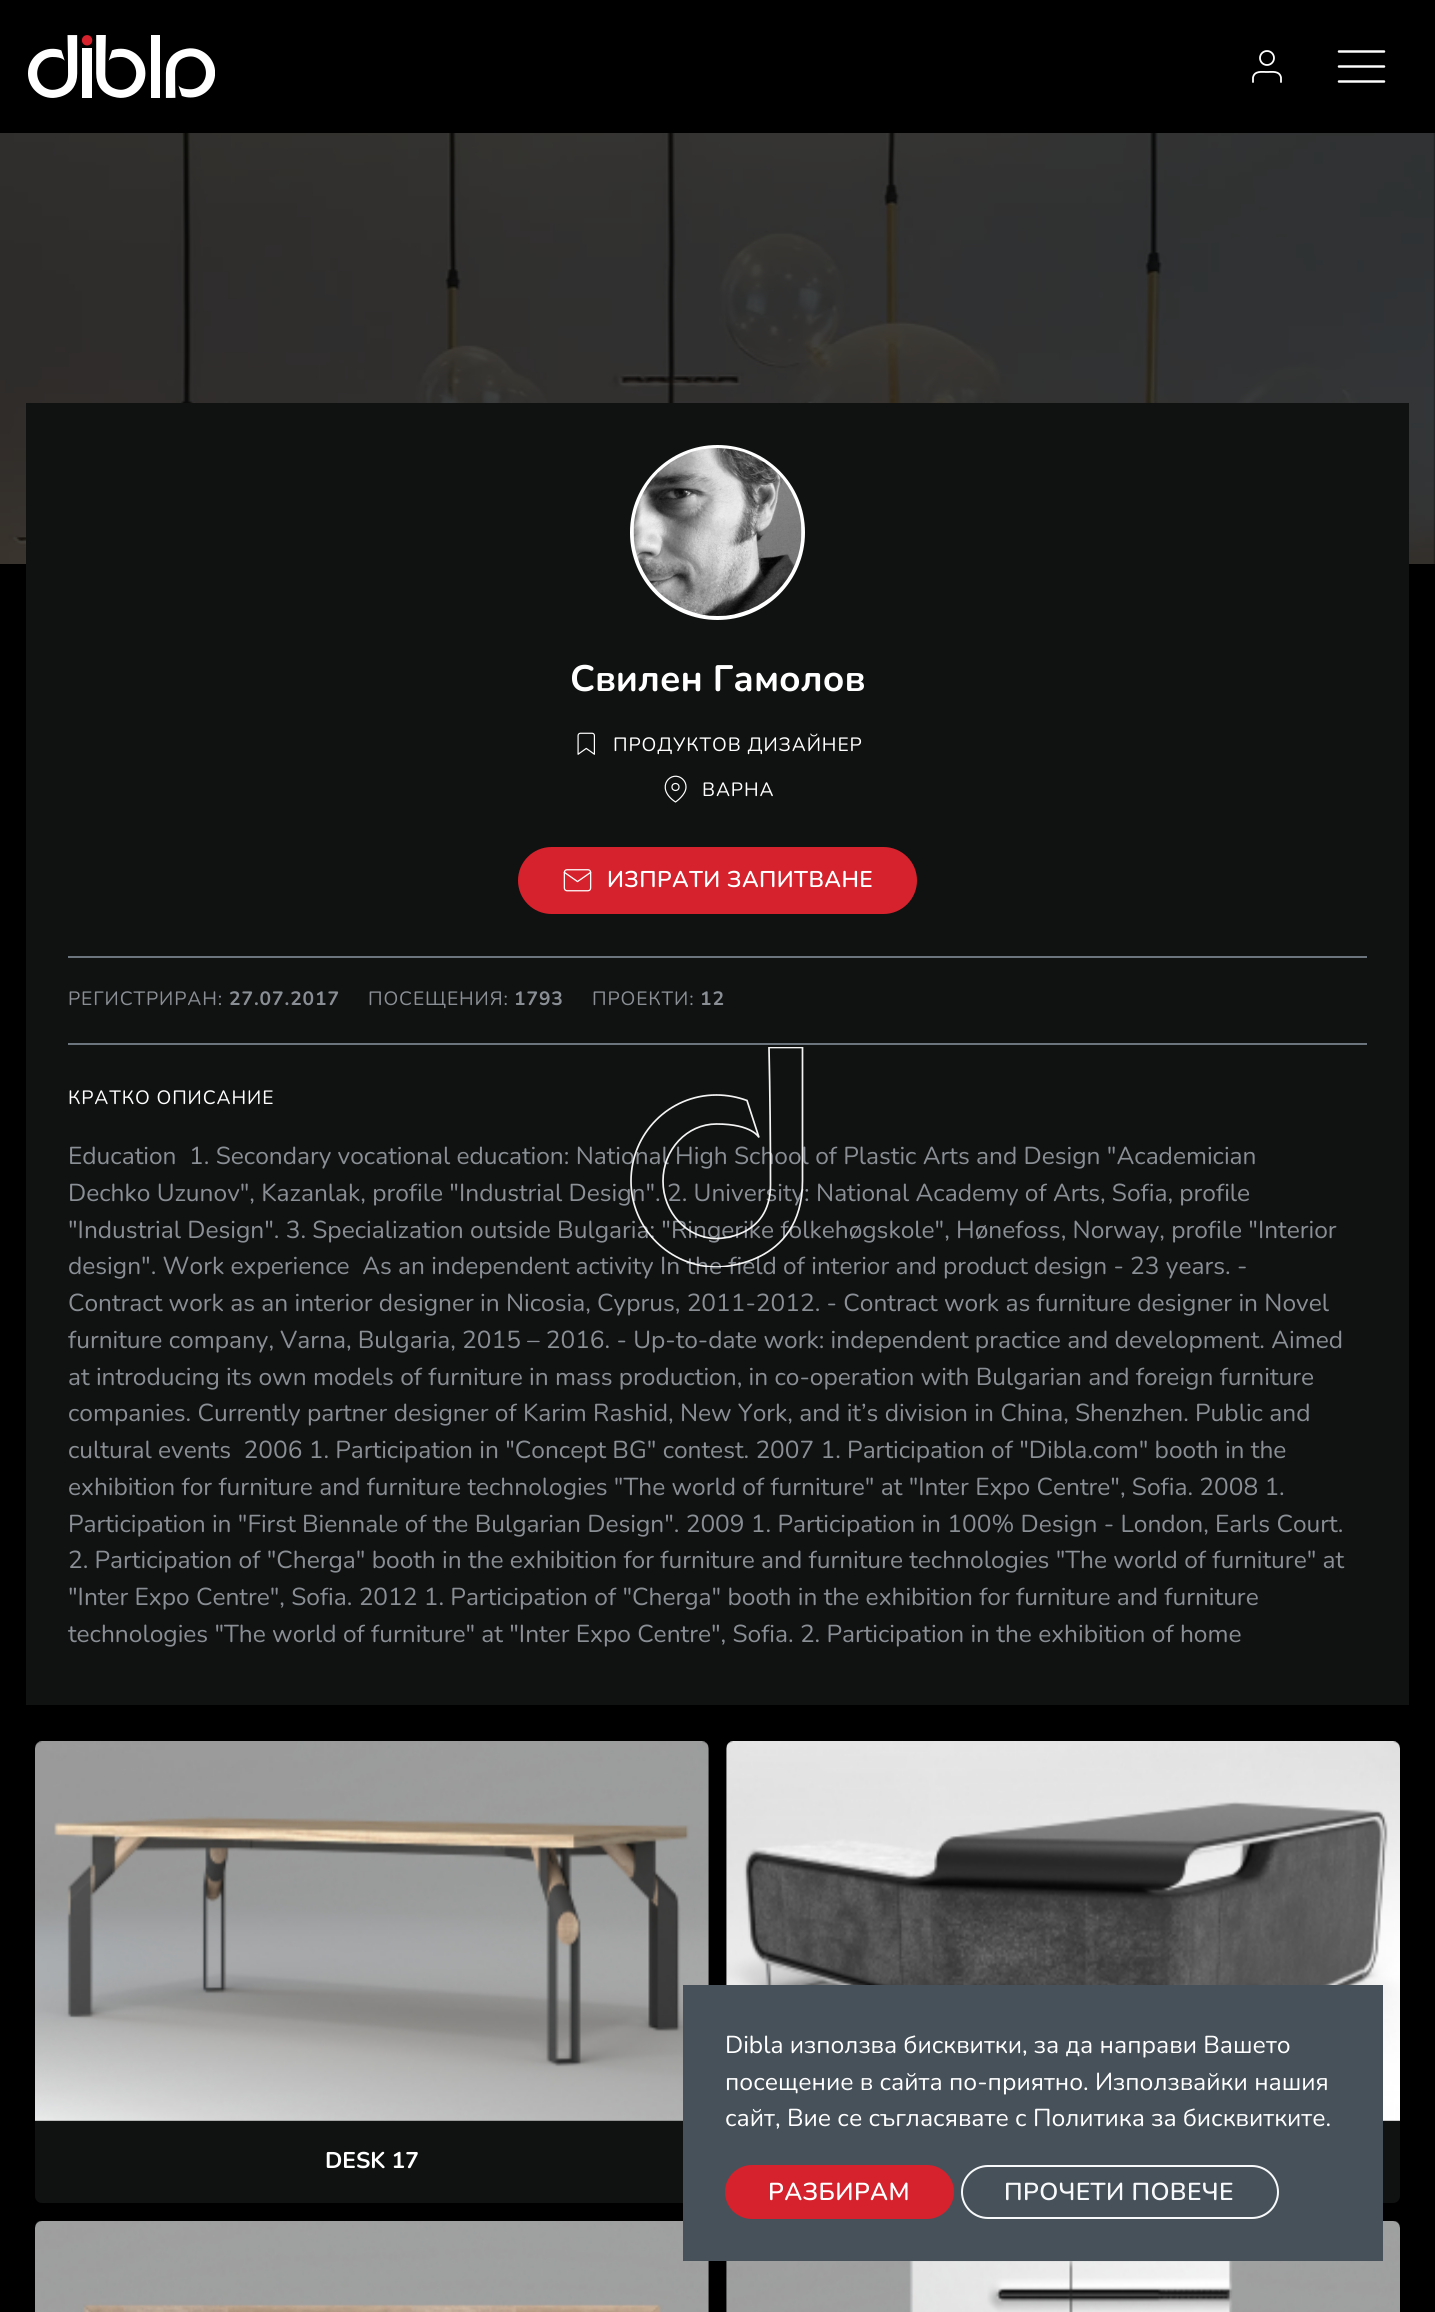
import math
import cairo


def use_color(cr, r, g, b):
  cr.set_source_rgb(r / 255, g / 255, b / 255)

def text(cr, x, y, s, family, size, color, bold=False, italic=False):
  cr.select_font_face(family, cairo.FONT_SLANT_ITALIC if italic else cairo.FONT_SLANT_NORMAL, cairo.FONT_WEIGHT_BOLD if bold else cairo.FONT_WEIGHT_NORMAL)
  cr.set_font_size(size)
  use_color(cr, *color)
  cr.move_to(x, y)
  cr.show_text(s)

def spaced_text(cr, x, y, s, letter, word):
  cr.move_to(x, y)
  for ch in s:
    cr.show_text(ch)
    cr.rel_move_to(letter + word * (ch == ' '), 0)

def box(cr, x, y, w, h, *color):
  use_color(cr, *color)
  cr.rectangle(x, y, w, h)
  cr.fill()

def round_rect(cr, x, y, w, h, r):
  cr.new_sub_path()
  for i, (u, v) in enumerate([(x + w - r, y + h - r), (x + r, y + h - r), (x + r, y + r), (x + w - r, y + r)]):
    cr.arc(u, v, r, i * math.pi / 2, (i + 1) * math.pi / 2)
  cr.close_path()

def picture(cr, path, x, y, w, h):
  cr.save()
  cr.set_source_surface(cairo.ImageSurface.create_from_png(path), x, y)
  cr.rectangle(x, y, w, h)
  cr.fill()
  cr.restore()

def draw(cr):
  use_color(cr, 0, 0, 0)
  cr.paint()
  picture(cr, "img_01.png", 28, 35, 187, 63)
  cr.arc(1267, 58, 7, 0, 2 * math.pi)
  use_color(cr, 255, 255, 255)
  cr.set_line_width(1.8)
  cr.stroke()
  cr.new_path()
  cr.move_to(1281, 82)
  cr.line_to(1281, 77.5)
  cr.curve_to(1279.5, 70.5, 1272, 72, 1267, 72)
  cr.curve_to(1262, 72, 1254.5, 70.5, 1253, 77.5)
  cr.line_to(1253, 82)
  cr.set_line_cap(cairo.LINE_CAP_ROUND)
  cr.set_line_join(cairo.LINE_JOIN_ROUND)
  cr.stroke()
  cr.new_path()
  cr.move_to(1339, 66.5)
  cr.line_to(1384, 66.5)
  cr.move_to(1339, 51.5)
  cr.line_to(1384, 51.5)
  cr.move_to(1339, 81.5)
  cr.line_to(1384, 81.5)
  cr.set_line_width(2.5)
  cr.stroke()
  picture(cr, "img_02.png", 0, 133, 1435, 431)
  box(cr, 26, 403, 1383, 1302, 16, 17, 17)
  use_color(cr, 255, 255, 255)
  cr.arc(717.5, 532.5, 85.5, 0, 2 * math.pi)
  cr.fill_preserve()
  cr.set_line_width(4)
  cr.set_line_cap(cairo.LINE_CAP_BUTT)
  cr.set_line_join(cairo.LINE_JOIN_MITER)
  cr.stroke()
  picture(cr, "img_03.png", 633, 448, 169, 168)
  picture(cr, "img_04.png", 577, 732, 18, 23)
  cr.new_path()
  cr.move_to(686, 787)
  cr.curve_to(686, 795, 675.5, 802, 675.5, 802)
  cr.curve_to(653.5, 787.5, 672, 768.5, 683, 779.5)
  cr.curve_to(685, 781.5, 686, 784, 686, 787)
  cr.close_path()
  cr.set_line_width(1.2)
  cr.set_line_cap(cairo.LINE_CAP_ROUND)
  cr.set_line_join(cairo.LINE_JOIN_ROUND)
  cr.stroke()
  cr.arc(675.5, 787, 3.5, 0, 2 * math.pi)
  cr.set_line_cap(cairo.LINE_CAP_BUTT)
  cr.set_line_join(cairo.LINE_JOIN_MITER)
  cr.stroke()
  use_color(cr, 213, 34, 44)
  round_rect(cr, 518, 847, 399, 67, 33.5)
  cr.fill()
  picture(cr, "img_05.png", 563, 869, 29, 23)
  box(cr, 68, 956, 1299, 2, 108, 117, 125)
  box(cr, 68, 1043, 1299, 2, 108, 117, 125)
  picture(cr, "img_06.png", 35, 1741, 674, 380)
  use_color(cr, 16, 17, 17)
  cr.new_path()
  cr.move_to(35, 2121)
  cr.line_to(709, 2121)
  cr.line_to(709, 2196)
  cr.curve_to(709, 2200, 706, 2203, 702, 2203)
  cr.line_to(42, 2203)
  cr.curve_to(38, 2203, 35, 2200, 35, 2196)
  cr.close_path()
  cr.fill()
  picture(cr, "img_07.png", 726, 1741, 674, 380)
  cr.new_path()
  cr.move_to(726, 2121)
  cr.line_to(1400, 2121)
  cr.line_to(1400, 2196)
  cr.curve_to(1400, 2200, 1397, 2203, 1393, 2203)
  cr.line_to(733, 2203)
  cr.curve_to(729, 2203, 726, 2200, 726, 2196)
  cr.close_path()
  cr.fill()
  picture(cr, "img_08.png", 35, 2221, 674, 91)
  picture(cr, "img_09.png", 726, 2221, 674, 91)
  box(cr, 683, 1985, 700, 276, 71, 81, 90)
  use_color(cr, 213, 34, 44)
  round_rect(cr, 725, 2165, 229, 54, 27)
  cr.fill()
  round_rect(cr, 962, 2166, 316, 52, 26)
  use_color(cr, 248, 249, 250)
  cr.set_line_width(2)
  cr.stroke()
  text(cr, 570, 691, "Свилен Гамолов", "Nunito", 36.75, (255, 255, 255), bold=True)
  cr.select_font_face("Nunito")
  cr.set_font_size(19.25)
  spaced_text(cr, 613, 751, "ПРОДУКТОВ ДИЗАЙНЕР", 0.9, 0)
  spaced_text(cr, 702, 796, "ВАРНА", 0.9, 0)
  cr.select_font_face("Nunito SemiBold")
  cr.set_font_size(22.75)
  spaced_text(cr, 607, 887, "ИЗПРАТИ ЗАПИТВАНЕ", 0.4, 0)
  cr.select_font_face("Nunito")
  cr.set_font_size(19.25)
  use_color(cr, 137, 143, 149)
  spaced_text(cr, 68, 1005, "РЕГИСТРИРАН:", 0.9, 0)
  cr.select_font_face("Nunito", cairo.FONT_SLANT_NORMAL, cairo.FONT_WEIGHT_BOLD)
  spaced_text(cr, 229, 1005, "27.07.2017", 0.9, 0)
  cr.select_font_face("Nunito")
  spaced_text(cr, 368, 1005, "ПОСЕЩЕНИЯ:", 0.9, 0)
  cr.select_font_face("Nunito", cairo.FONT_SLANT_NORMAL, cairo.FONT_WEIGHT_BOLD)
  spaced_text(cr, 514, 1005, "1793", 0.9, 0)
  cr.select_font_face("Nunito")
  spaced_text(cr, 592, 1005, "ПРОЕКТИ:", 0.9, 0)
  cr.select_font_face("Nunito", cairo.FONT_SLANT_NORMAL, cairo.FONT_WEIGHT_BOLD)
  spaced_text(cr, 700, 1005, "12", 0.9, 0)
  cr.select_font_face("Nunito")
  use_color(cr, 255, 255, 255)
  spaced_text(cr, 68, 1104, "КРАТКО ОПИСАНИЕ", 0.9, 0)
  text(cr, 68, 1164, "Education  1. Secondary vocational education: National High School of Plastic Arts and Design \"Academician", "Nunito", 24.5, (137, 143, 149))
  text(cr, 68, 1201, "Dechko Uzunov\", Kazanlak, profile \"Industrial Design\". 2. University: National Academy of Arts, Sofia, profile", "Nunito", 24.5, (137, 143, 149))
  text(cr, 68, 1238, "\"Industrial Design\". 3. Specialization outside Bulgaria: \"Ringerike folkehøgskole\", Hønefoss, Norway, profile \"Interior", "Nunito", 24.5, (137, 143, 149))
  text(cr, 68, 1274, "design\". Work experience  As an independent activity In the field of interior and product design - 23 years. -", "Nunito", 24.5, (137, 143, 149))
  text(cr, 68, 1311, "Contract work as an interior designer in Nicosia, Cyprus, 2011-2012. - Contract work as furniture designer in Novel", "Nunito", 24.5, (137, 143, 149))
  text(cr, 68, 1348, "furniture company, Varna, Bulgaria, 2015 – 2016. - Up-to-date work: independent practice and development. Aimed", "Nunito", 24.5, (137, 143, 149))
  text(cr, 68, 1385, "at introducing its own models of furniture in mass production, in co-operation with Bulgarian and foreign furniture", "Nunito", 24.5, (137, 143, 149))
  text(cr, 68, 1421, "companies. Currently partner designer of Karim Rashid, New York, and it’s division in China, Shenzhen. Public and", "Nunito", 24.5, (137, 143, 149))
  text(cr, 68, 1458, "cultural events  2006 1. Participation in \"Concept BG\" contest. 2007 1. Participation of \"Dibla.com\" booth in the", "Nunito", 24.5, (137, 143, 149))
  text(cr, 68, 1495, "exhibition for furniture and furniture technologies \"The world of furniture\" at \"Inter Expo Centre\", Sofia. 2008 1.", "Nunito", 24.5, (137, 143, 149))
  text(cr, 68, 1532, "Participation in \"First Biennale of the Bulgarian Design\". 2009 1. Participation in 100% Design - London, Earls Court.", "Nunito", 24.5, (137, 143, 149))
  text(cr, 68, 1568, "2. Participation of \"Cherga\" booth in the exhibition for furniture and furniture technologies \"The world of furniture\" at", "Nunito", 24.5, (137, 143, 149))
  text(cr, 68, 1605, "\"Inter Expo Centre\", Sofia. 2012 1. Participation of \"Cherga\" booth in the exhibition for furniture and furniture", "Nunito", 24.5, (137, 143, 149))
  text(cr, 68, 1642, "technologies \"The world of furniture\" at \"Inter Expo Centre\", Sofia. 2. Participation in the exhibition of home", "Nunito", 24.5, (137, 143, 149))
  text(cr, 325, 2168, "DESK 17", "Nunito", 22.75, (255, 255, 255), bold=True)
  cr.save()
  cr.rectangle(630, 1047, 175, 220)
  cr.clip()
  cr.new_path()
  cr.move_to(802.5, 1181)
  cr.curve_to(802.5, 1267.5, 717, 1267, 717, 1267)
  cr.curve_to(669.5, 1267, 631, 1228.5, 631, 1181)
  cr.curve_to(631, 1133.5, 669, 1095, 716.5, 1095)
  cr.curve_to(727, 1095, 737.5, 1097, 747, 1100.5)
  cr.line_to(759, 1137.5)
  cr.curve_to(759, 1137.5, 752.5, 1124, 716.5, 1124)
  cr.curve_to(687, 1124, 663, 1149.5, 663, 1181)
  cr.curve_to(663, 1212.5, 687, 1238.5, 716.5, 1238.5)
  cr.curve_to(716.5, 1238.5, 770.5, 1239.5, 770.5, 1184.5)
  cr.curve_to(770.5, 1139, 770, 1093, 769, 1047.5)
  cr.line_to(802.5, 1047.5)
  cr.line_to(802.5, 1181)
  cr.set_source_rgba(1, 1, 1, 0.95)
  cr.set_line_width(1.7)
  cr.stroke()
  cr.restore()
  text(cr, 725, 2053, "Dibla използва бисквитки, за да направи Вашето", "Nunito", 24.5, (255, 255, 255))
  text(cr, 725, 2090, "посещение в сайта по-приятно. Използвайки нашия", "Nunito", 24.5, (255, 255, 255))
  text(cr, 725, 2126, "сайт, Вие се съгласявате с Политика за бисквитките.", "Nunito", 24.5, (255, 255, 255))
  cr.select_font_face("Nunito SemiBold")
  spaced_text(cr, 768, 2200, "РАЗБИРАМ", 0.4, 0)
  use_color(cr, 248, 249, 250)
  spaced_text(cr, 1004, 2200, "ПРОЧЕТИ ПОВЕЧЕ", 0.4, 0)


surface = cairo.ImageSurface(cairo.FORMAT_RGB24, 1435, 2312)
cr = cairo.Context(surface)
options = cairo.FontOptions()
options.set_hint_metrics(cairo.HINT_METRICS_OFF)
options.set_hint_style(cairo.HINT_STYLE_NONE)
cr.set_font_options(options)
cr.set_miter_limit(4)
draw(cr)
surface.write_to_png("out.png")
